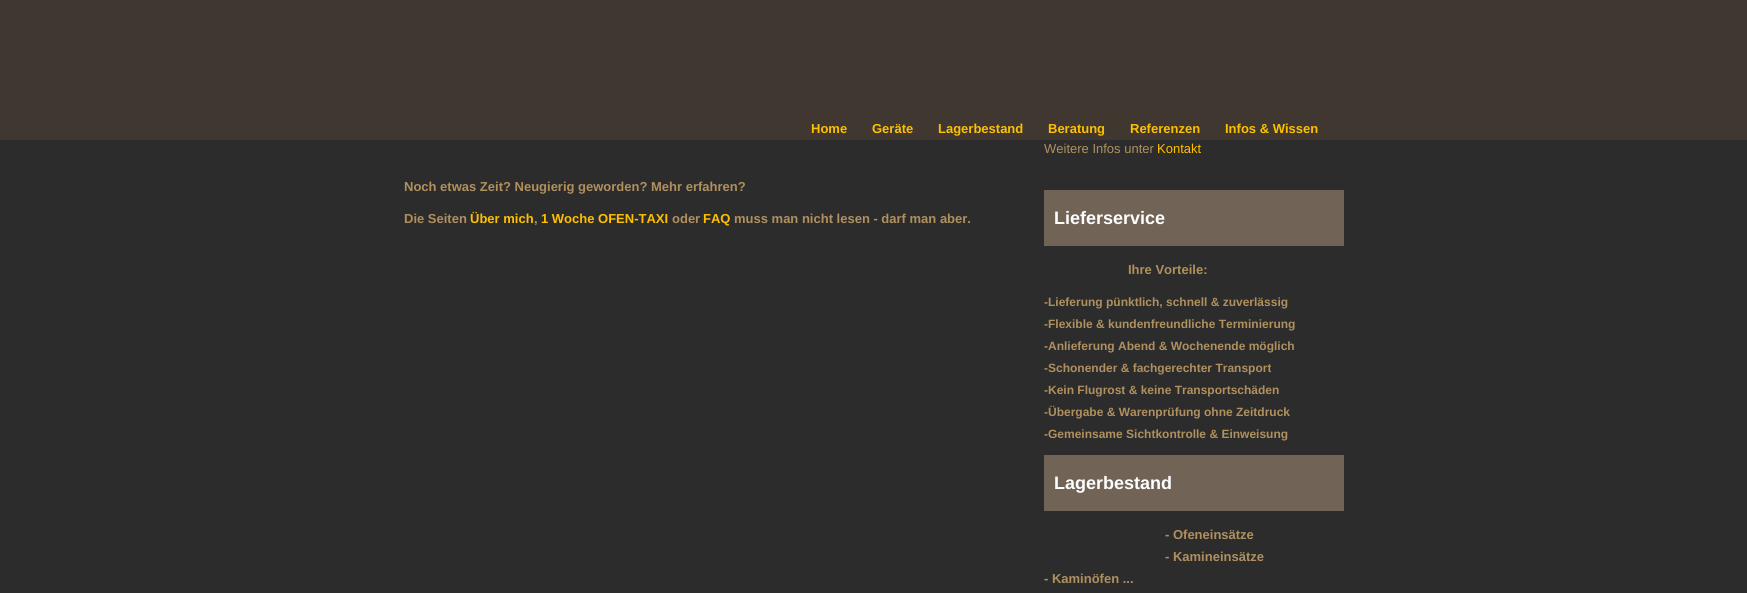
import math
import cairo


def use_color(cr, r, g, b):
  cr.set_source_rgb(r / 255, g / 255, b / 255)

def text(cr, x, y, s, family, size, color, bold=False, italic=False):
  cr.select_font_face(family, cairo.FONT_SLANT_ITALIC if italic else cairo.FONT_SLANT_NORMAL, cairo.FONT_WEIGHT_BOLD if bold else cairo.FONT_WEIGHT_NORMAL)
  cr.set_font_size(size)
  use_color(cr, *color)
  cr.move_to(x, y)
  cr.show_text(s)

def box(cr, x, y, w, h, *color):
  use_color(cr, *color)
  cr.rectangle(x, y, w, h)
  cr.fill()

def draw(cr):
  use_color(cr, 44, 44, 44)
  cr.paint()
  box(cr, 0, 0, 1747, 140, 64, 56, 48)
  box(cr, 1044, 190, 300, 56, 113, 100, 87)
  box(cr, 1044, 455, 300, 56, 113, 100, 87)
  text(cr, 811, 133, "Home", "Liberation Sans", 13, (254, 192, 0), bold=True)
  text(cr, 872, 133, "Geräte", "Liberation Sans", 13, (254, 192, 0), bold=True)
  text(cr, 938, 133, "Lagerbestand", "Liberation Sans", 13, (254, 192, 0), bold=True)
  text(cr, 1048, 133, "Beratung", "Liberation Sans", 13, (254, 192, 0), bold=True)
  text(cr, 1130, 133, "Referenzen", "Liberation Sans", 13, (254, 192, 0), bold=True)
  text(cr, 1225, 133, "Infos & Wissen", "Liberation Sans", 13, (254, 192, 0), bold=True)
  text(cr, 404, 191, "Noch etwas Zeit? Neugierig geworden? Mehr erfahren?", "Liberation Sans", 13, (176, 144, 94), bold=True)
  text(cr, 404, 223, "Die Seiten", "Liberation Sans", 13, (176, 144, 94), bold=True)
  text(cr, 470, 223, "Über mich", "Liberation Sans", 13, (254, 192, 0), bold=True)
  text(cr, 534, 223, ",", "Liberation Sans", 13, (176, 144, 94), bold=True)
  text(cr, 541, 223, "1 Woche OFEN-TAXI", "Liberation Sans", 13, (254, 192, 0), bold=True)
  text(cr, 672, 223, "oder", "Liberation Sans", 13, (176, 144, 94), bold=True)
  text(cr, 703, 223, "FAQ", "Liberation Sans", 13, (254, 192, 0), bold=True)
  text(cr, 734, 223, "muss man nicht lesen - darf man aber.", "Liberation Sans", 13, (176, 144, 94), bold=True)
  text(cr, 1044, 153, "Weitere Infos unter", "Liberation Sans", 13, (176, 144, 94))
  text(cr, 1157, 153, "Kontakt", "Liberation Sans", 13, (254, 192, 0))
  text(cr, 1054, 224, "Lieferservice", "Liberation Sans", 18, (255, 255, 255), bold=True)
  text(cr, 1128, 274, "Ihre Vorteile:", "Liberation Sans", 13, (176, 144, 94), bold=True)
  text(cr, 1044, 306, "-Lieferung pünktlich, schnell & zuverlässig", "Liberation Sans", 12, (176, 144, 94), bold=True)
  text(cr, 1044, 328, "-Flexible & kundenfreundliche Terminierung", "Liberation Sans", 12, (176, 144, 94), bold=True)
  text(cr, 1044, 350, "-Anlieferung Abend & Wochenende möglich", "Liberation Sans", 12, (176, 144, 94), bold=True)
  text(cr, 1044, 372, "-Schonender & fachgerechter Transport", "Liberation Sans", 12, (176, 144, 94), bold=True)
  text(cr, 1044, 394, "-Kein Flugrost & keine Transportschäden", "Liberation Sans", 12, (176, 144, 94), bold=True)
  text(cr, 1044, 416, "-Übergabe & Warenprüfung ohne Zeitdruck", "Liberation Sans", 12, (176, 144, 94), bold=True)
  text(cr, 1044, 438, "-Gemeinsame Sichtkontrolle & Einweisung", "Liberation Sans", 12, (176, 144, 94), bold=True)
  text(cr, 1054, 489, "Lagerbestand", "Liberation Sans", 18, (255, 255, 255), bold=True)
  text(cr, 1165, 539, "- Ofeneinsätze", "Liberation Sans", 13, (176, 144, 94), bold=True)
  text(cr, 1165, 561, "- Kamineinsätze", "Liberation Sans", 13, (176, 144, 94), bold=True)
  text(cr, 1044, 583, "- Kaminöfen ...", "Liberation Sans", 13, (176, 144, 94), bold=True)


surface = cairo.ImageSurface(cairo.FORMAT_RGB24, 1747, 593)
cr = cairo.Context(surface)
options = cairo.FontOptions()
options.set_hint_metrics(cairo.HINT_METRICS_OFF)
options.set_hint_style(cairo.HINT_STYLE_NONE)
cr.set_font_options(options)
cr.set_miter_limit(4)
draw(cr)
surface.write_to_png("out.png")
